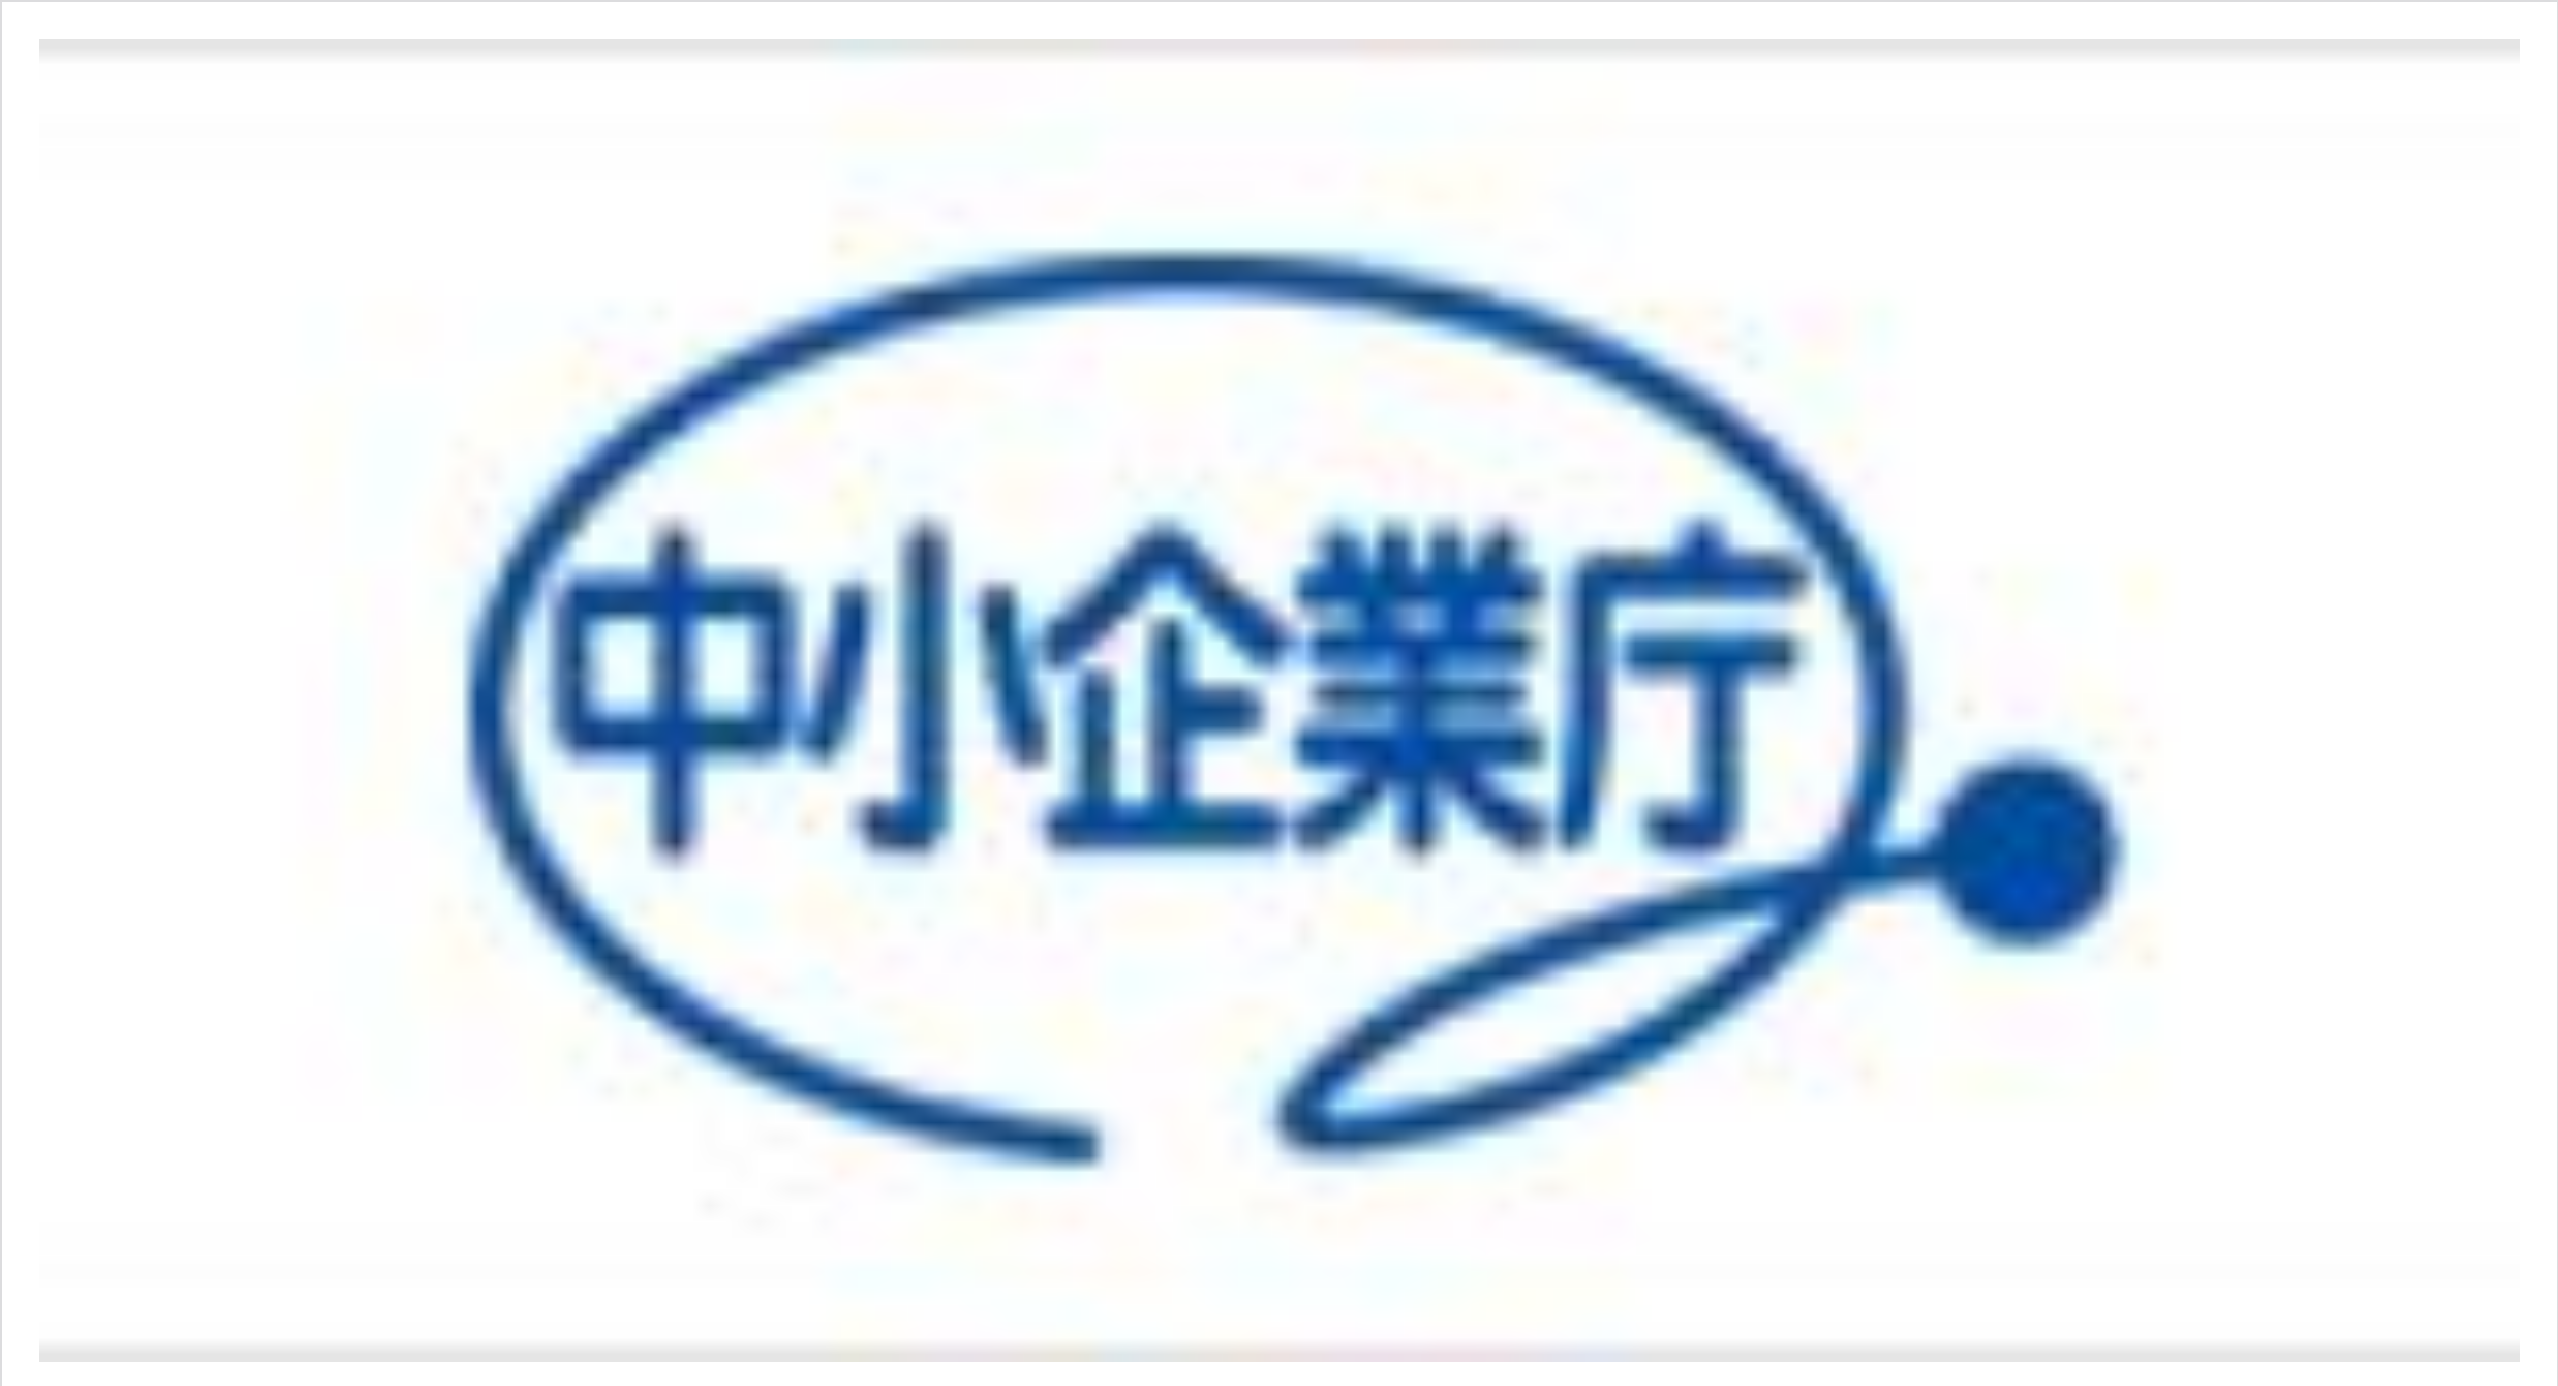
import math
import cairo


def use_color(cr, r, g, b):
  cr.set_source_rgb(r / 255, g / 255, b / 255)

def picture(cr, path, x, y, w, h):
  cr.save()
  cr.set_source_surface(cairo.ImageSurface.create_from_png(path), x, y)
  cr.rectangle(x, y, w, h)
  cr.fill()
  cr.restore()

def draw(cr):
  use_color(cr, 255, 255, 255)
  cr.paint()
  cr.rectangle(1, 1, 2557, 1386)
  use_color(cr, 220, 220, 222)
  cr.stroke()
  picture(cr, "img_01.png", 39, 39, 2481, 1323)


surface = cairo.ImageSurface(cairo.FORMAT_RGB24, 2558, 1386)
cr = cairo.Context(surface)
options = cairo.FontOptions()
options.set_hint_metrics(cairo.HINT_METRICS_OFF)
options.set_hint_style(cairo.HINT_STYLE_NONE)
cr.set_font_options(options)
cr.set_miter_limit(4)
draw(cr)
surface.write_to_png("out.png")
